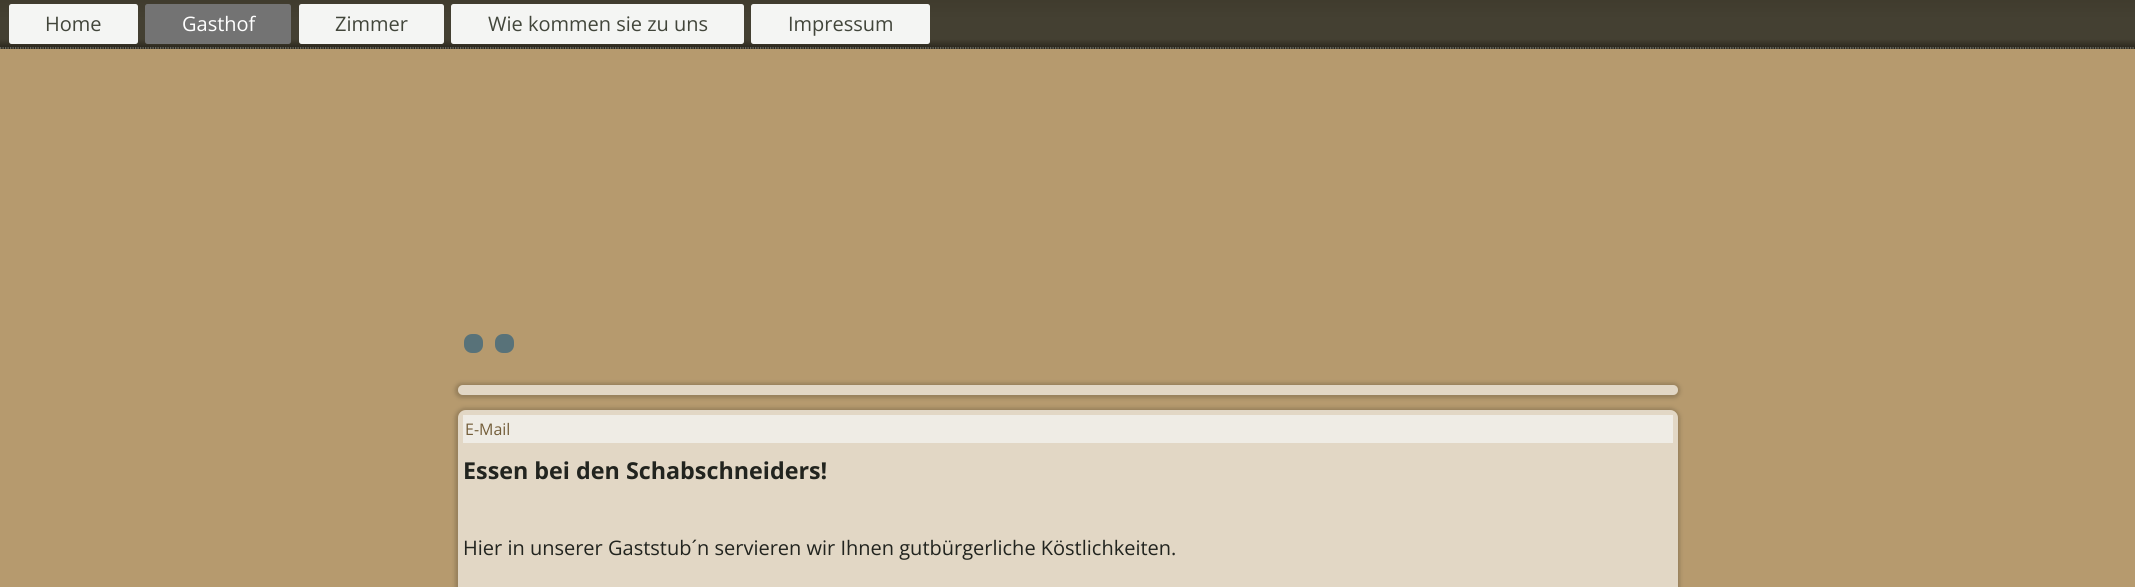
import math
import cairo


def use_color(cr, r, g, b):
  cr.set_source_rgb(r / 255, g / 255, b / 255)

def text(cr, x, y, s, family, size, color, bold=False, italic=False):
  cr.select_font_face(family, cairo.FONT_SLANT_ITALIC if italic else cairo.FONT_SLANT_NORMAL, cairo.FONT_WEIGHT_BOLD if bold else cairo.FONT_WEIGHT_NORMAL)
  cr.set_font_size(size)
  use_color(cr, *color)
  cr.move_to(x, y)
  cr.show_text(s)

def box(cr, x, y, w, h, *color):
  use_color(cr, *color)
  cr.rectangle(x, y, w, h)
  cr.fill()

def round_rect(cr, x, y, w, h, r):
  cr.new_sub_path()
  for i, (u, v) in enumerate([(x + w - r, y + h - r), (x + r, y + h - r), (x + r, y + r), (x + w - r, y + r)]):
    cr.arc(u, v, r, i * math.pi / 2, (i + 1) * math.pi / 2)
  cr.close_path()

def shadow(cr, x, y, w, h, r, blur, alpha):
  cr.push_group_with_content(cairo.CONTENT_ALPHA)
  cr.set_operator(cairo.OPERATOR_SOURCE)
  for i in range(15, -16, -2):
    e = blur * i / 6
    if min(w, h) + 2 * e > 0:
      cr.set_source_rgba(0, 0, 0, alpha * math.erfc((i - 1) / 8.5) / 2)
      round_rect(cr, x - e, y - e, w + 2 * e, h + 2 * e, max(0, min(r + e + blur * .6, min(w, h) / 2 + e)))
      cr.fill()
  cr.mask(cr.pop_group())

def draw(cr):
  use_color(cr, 182, 154, 110)
  cr.paint()
  gradient = cairo.LinearGradient(1068, 0, 1068, 49)
  gradient.add_color_stop_rgba(0, 0.251, 0.235, 0.18, 1)
  gradient.add_color_stop_rgba(0.4, 0.267, 0.251, 0.196, 1)
  gradient.add_color_stop_rgba(0.8, 0.267, 0.251, 0.196, 1)
  gradient.add_color_stop_rgba(1, 0.157, 0.141, 0.102, 1)
  cr.set_source(gradient)
  cr.rectangle(0, 0, 2135, 49)
  cr.fill()
  cr.new_path()
  cr.move_to(0, 48)
  cr.line_to(2135, 48)
  cr.set_source_rgba(0.741, 0.757, 0.714, 0.7)
  cr.set_line_width(1.2)
  cr.set_dash([1.25, 1.25])
  cr.stroke()
  use_color(cr, 244, 245, 243)
  round_rect(cr, 9, 4, 129, 40, 2.5)
  cr.fill()
  use_color(cr, 115, 115, 115)
  round_rect(cr, 145, 4, 146, 40, 2.5)
  cr.fill()
  use_color(cr, 244, 245, 243)
  round_rect(cr, 299, 4, 145, 40, 2.5)
  cr.fill()
  round_rect(cr, 451, 4, 293, 40, 2.5)
  cr.fill()
  round_rect(cr, 751, 4, 179, 40, 2.5)
  cr.fill()
  use_color(cr, 88, 114, 121)
  round_rect(cr, 464, 334, 19, 19, 8)
  cr.fill()
  round_rect(cr, 495, 334, 19, 19, 8)
  cr.fill()
  cr.save()
  cr.set_fill_rule(cairo.FILL_RULE_EVEN_ODD)
  cr.new_path()
  cr.move_to(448, 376)
  cr.line_to(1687, 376)
  cr.line_to(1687, 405)
  cr.line_to(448, 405)
  cr.close_path()
  cr.move_to(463, 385)
  cr.line_to(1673, 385)
  cr.curve_to(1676, 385, 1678, 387, 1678, 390)
  cr.curve_to(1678, 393, 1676, 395, 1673, 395)
  cr.line_to(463, 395)
  cr.curve_to(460, 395, 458, 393, 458, 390)
  cr.curve_to(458, 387, 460, 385, 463, 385)
  cr.close_path()
  cr.clip()
  use_color(cr, 0, 0, 0)
  shadow(cr, 455, 383, 1225, 15, 7.5, 2, 0.18)
  cr.restore()
  cr.set_source_rgba(1, 1, 1, 0.6)
  round_rect(cr, 458, 385, 1220, 10, 5)
  cr.fill()
  round_rect(cr, 458.5, 385.5, 1219, 9, 4.5)
  cr.set_source_rgba(0.827, 0.839, 0.812, 0.1)
  cr.set_line_width(1)
  cr.set_dash([])
  cr.stroke()
  cr.save()
  cr.set_fill_rule(cairo.FILL_RULE_EVEN_ODD)
  cr.new_path()
  cr.move_to(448, 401)
  cr.line_to(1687, 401)
  cr.line_to(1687, 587)
  cr.line_to(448, 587)
  cr.close_path()
  cr.move_to(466, 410)
  cr.line_to(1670, 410)
  cr.curve_to(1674.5, 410, 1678, 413.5, 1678, 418)
  cr.line_to(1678, 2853)
  cr.curve_to(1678, 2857.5, 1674.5, 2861, 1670, 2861)
  cr.line_to(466, 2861)
  cr.curve_to(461.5, 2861, 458, 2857.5, 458, 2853)
  cr.line_to(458, 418)
  cr.curve_to(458, 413.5, 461.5, 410, 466, 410)
  cr.close_path()
  cr.clip()
  use_color(cr, 0, 0, 0)
  shadow(cr, 455, 408, 1225, 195, 10, 2, 0.18)
  cr.restore()
  cr.set_source_rgba(1, 1, 1, 0.6)
  round_rect(cr, 458, 410, 1220, 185, 8)
  cr.fill()
  round_rect(cr, 458.5, 410.5, 1219, 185, 7.5)
  cr.set_source_rgba(0.827, 0.839, 0.812, 0.1)
  cr.stroke()
  box(cr, 463, 415, 1210, 28, 239, 236, 229)
  text(cr, 45, 31, "Home", "Open Sans", 20, (66, 70, 59))
  text(cr, 182, 31, "Gasthof", "Open Sans", 20, (255, 255, 255))
  text(cr, 335, 31, "Zimmer", "Open Sans", 20, (66, 70, 59))
  text(cr, 488, 31, "Wie kommen sie zu uns", "Open Sans", 20, (66, 70, 59))
  text(cr, 788, 31, "Impressum", "Open Sans", 20, (66, 70, 59))
  text(cr, 465, 435, "E-Mail", "Open Sans", 16, (116, 94, 58))
  text(cr, 463, 479, "Essen bei den Schabschneiders!", "Open Sans", 23.3, (34, 36, 31), bold=True)
  text(cr, 463, 555, "Hier in unserer Gaststub´n servieren wir Ihnen gutbürgerliche Köstlichkeiten.", "Open Sans", 20, (34, 36, 31))


surface = cairo.ImageSurface(cairo.FORMAT_RGB24, 2135, 587)
cr = cairo.Context(surface)
options = cairo.FontOptions()
options.set_hint_metrics(cairo.HINT_METRICS_OFF)
options.set_hint_style(cairo.HINT_STYLE_NONE)
cr.set_font_options(options)
cr.set_miter_limit(4)
draw(cr)
surface.write_to_png("out.png")
